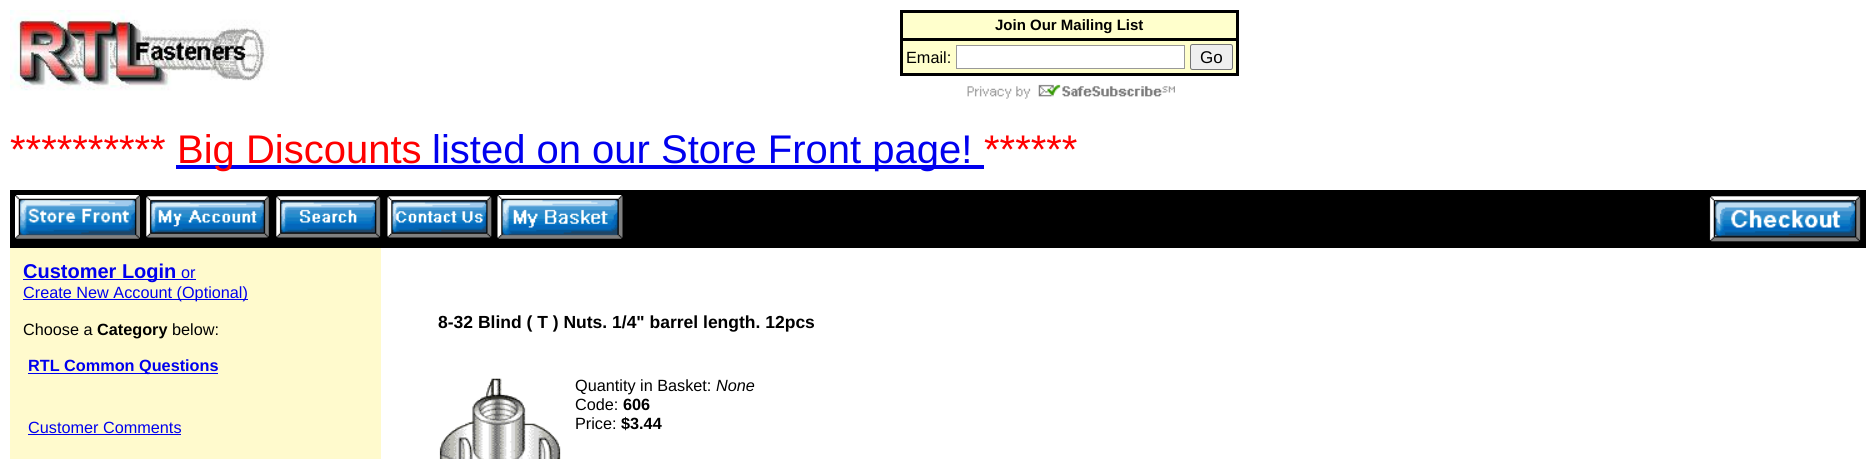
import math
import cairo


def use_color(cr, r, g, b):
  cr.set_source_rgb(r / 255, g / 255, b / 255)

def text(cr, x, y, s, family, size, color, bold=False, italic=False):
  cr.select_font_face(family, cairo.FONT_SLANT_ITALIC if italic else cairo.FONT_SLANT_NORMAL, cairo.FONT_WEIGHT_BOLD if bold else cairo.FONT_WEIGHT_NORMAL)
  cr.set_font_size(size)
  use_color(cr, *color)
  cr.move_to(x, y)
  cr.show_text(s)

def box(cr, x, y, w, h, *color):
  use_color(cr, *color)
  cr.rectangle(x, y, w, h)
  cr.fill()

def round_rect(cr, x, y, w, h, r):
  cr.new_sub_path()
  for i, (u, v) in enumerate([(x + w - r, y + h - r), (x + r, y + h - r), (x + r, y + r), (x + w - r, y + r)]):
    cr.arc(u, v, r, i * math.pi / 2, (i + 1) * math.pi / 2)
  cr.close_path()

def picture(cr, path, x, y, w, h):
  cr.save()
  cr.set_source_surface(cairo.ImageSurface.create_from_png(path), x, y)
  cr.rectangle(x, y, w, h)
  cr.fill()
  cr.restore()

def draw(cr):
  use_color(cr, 255, 255, 255)
  cr.paint()
  picture(cr, "img_01.png", 10, 10, 260, 81)
  use_color(cr, 255, 255, 204)
  cr.rectangle(901.5, 11.5, 336, 63)
  cr.fill_preserve()
  use_color(cr, 0, 0, 0)
  cr.set_line_width(3)
  cr.stroke()
  box(cr, 903, 38, 333, 3, 0, 0, 0)
  use_color(cr, 255, 255, 255)
  cr.rectangle(956.5, 45.5, 228, 23)
  cr.fill_preserve()
  use_color(cr, 153, 153, 153)
  cr.set_line_width(1)
  cr.stroke()
  use_color(cr, 239, 239, 239)
  round_rect(cr, 1190.5, 44.5, 42, 25, 2)
  cr.fill_preserve()
  use_color(cr, 118, 118, 118)
  cr.stroke()
  picture(cr, "img_02.png", 967, 84, 208, 15)
  box(cr, 176, 165, 808, 4, 0, 0, 238)
  box(cr, 10, 190, 1856, 58, 0, 0, 0)
  picture(cr, "img_03.png", 15, 195, 125, 44)
  picture(cr, "img_04.png", 146, 196, 123, 42)
  picture(cr, "img_05.png", 276, 196, 105, 42)
  picture(cr, "img_06.png", 387, 196, 105, 42)
  picture(cr, "img_07.png", 497, 195, 126, 44)
  picture(cr, "img_08.png", 1709, 196, 152, 46)
  box(cr, 10, 248, 371, 211, 255, 250, 205)
  box(cr, 23, 279, 173, 1, 0, 0, 238)
  box(cr, 23, 299, 225, 1, 0, 0, 238)
  box(cr, 28, 373, 190, 1, 0, 0, 238)
  box(cr, 28, 434, 153, 1, 0, 0, 238)
  picture(cr, "img_09.png", 439, 378, 122, 81)
  text(cr, 995, 30, "Join Our Mailing List", "Liberation Sans", 15, (0, 0, 0), bold=True)
  text(cr, 906, 63, "Email:", "Liberation Sans", 16.25, (0, 0, 0))
  text(cr, 1200, 63, "Go", "Liberation Sans", 17, (0, 0, 0))
  text(cr, 10, 163, "**********", "Liberation Sans", 40, (255, 0, 0))
  text(cr, 177, 163, "Big Discounts", "Liberation Sans", 40, (255, 0, 0))
  text(cr, 432, 163, "listed on our Store Front page!", "Liberation Sans", 40, (0, 0, 238))
  text(cr, 984, 163, "******", "Liberation Sans", 40, (255, 0, 0))
  text(cr, 23, 278, "Customer Login", "Liberation Sans", 20, (0, 0, 238), bold=True)
  text(cr, 181, 278, "or", "Liberation Sans", 16.25, (0, 0, 238))
  text(cr, 23, 298, "Create New Account (Optional)", "Liberation Sans", 16.25, (0, 0, 238))
  text(cr, 23, 335, "Choose a", "Liberation Sans", 16.25, (0, 0, 0))
  text(cr, 97, 335, "Category", "Liberation Sans", 16.25, (0, 0, 0), bold=True)
  text(cr, 172, 335, "below:", "Liberation Sans", 16.25, (0, 0, 0))
  text(cr, 28, 371, "RTL Common Questions", "Liberation Sans", 16.25, (0, 0, 238), bold=True)
  text(cr, 28, 433, "Customer Comments", "Liberation Sans", 16.25, (0, 0, 238))
  text(cr, 438, 328, "8-32 Blind ( T ) Nuts. 1/4\" barrel length. 12pcs", "Liberation Sans", 17.5, (0, 0, 0), bold=True)
  text(cr, 575, 391, "Quantity in Basket:", "Liberation Sans", 16.25, (0, 0, 0))
  text(cr, 716, 391, "None", "Liberation Sans", 16.25, (0, 0, 0), italic=True)
  text(cr, 575, 410, "Code:", "Liberation Sans", 16.25, (0, 0, 0))
  text(cr, 623, 410, "606", "Liberation Sans", 16.25, (0, 0, 0), bold=True)
  text(cr, 575, 429, "Price:", "Liberation Sans", 16.25, (0, 0, 0))
  text(cr, 621, 429, "$3.44", "Liberation Sans", 16.25, (0, 0, 0), bold=True)


surface = cairo.ImageSurface(cairo.FORMAT_RGB24, 1876, 459)
cr = cairo.Context(surface)
options = cairo.FontOptions()
options.set_hint_metrics(cairo.HINT_METRICS_OFF)
options.set_hint_style(cairo.HINT_STYLE_NONE)
cr.set_font_options(options)
cr.set_miter_limit(4)
draw(cr)
surface.write_to_png("out.png")
